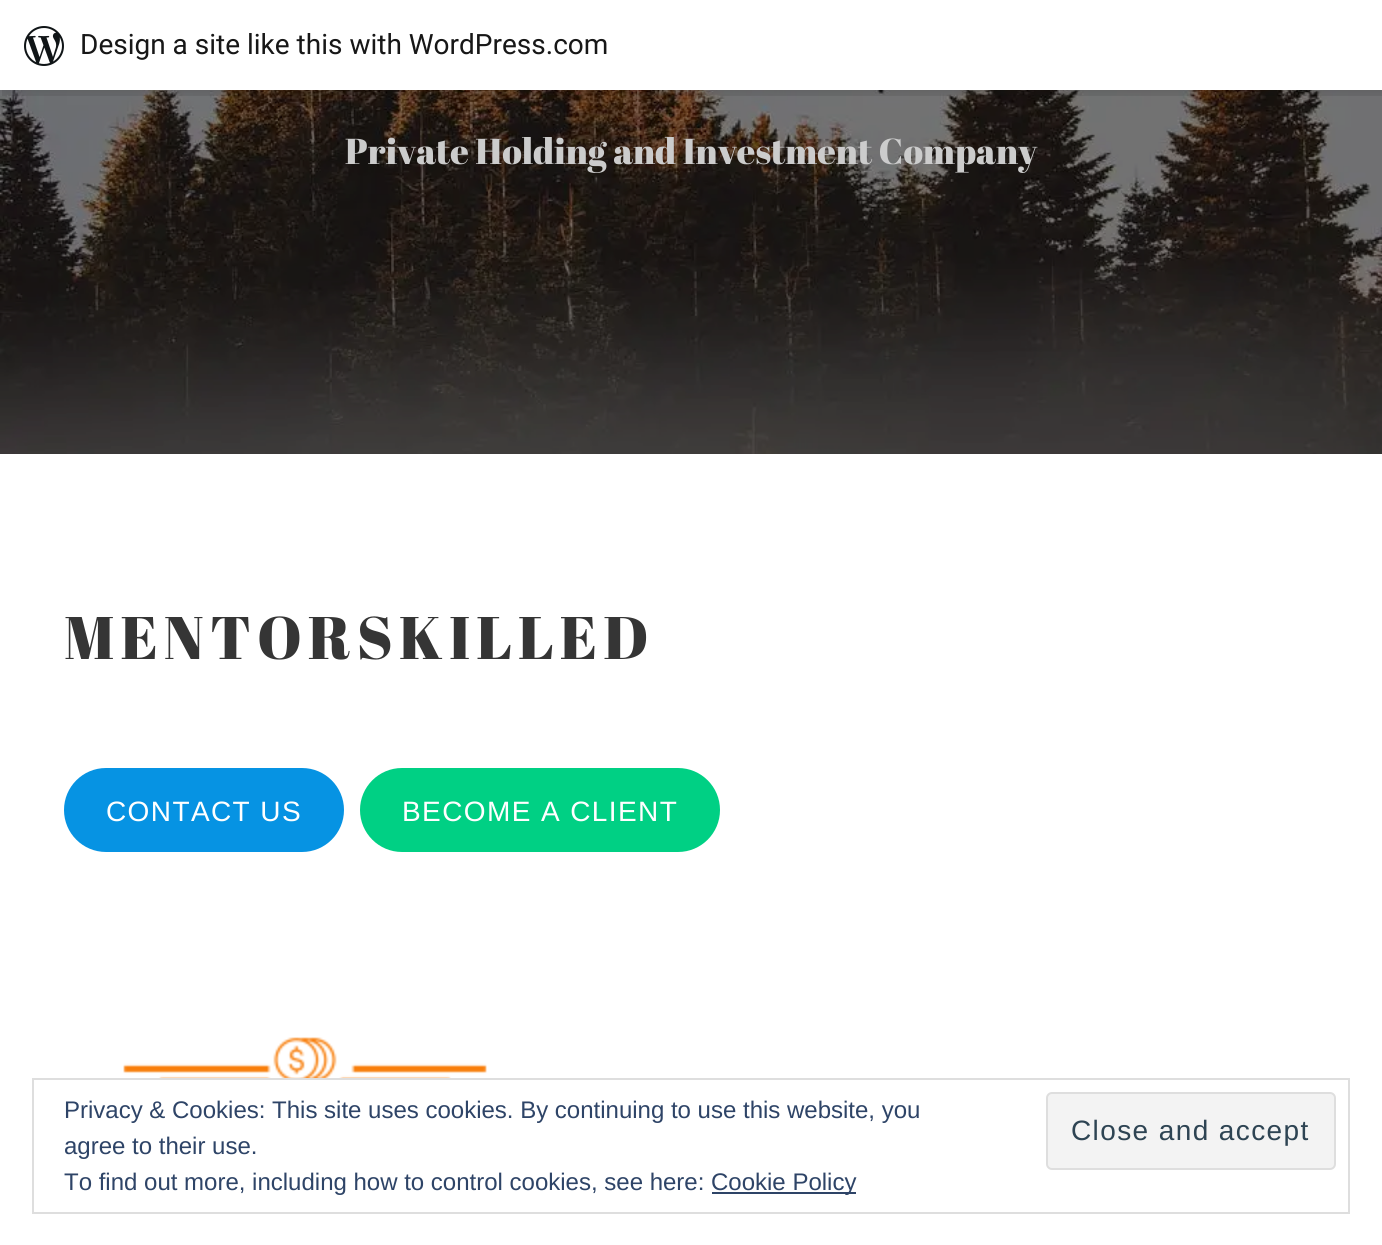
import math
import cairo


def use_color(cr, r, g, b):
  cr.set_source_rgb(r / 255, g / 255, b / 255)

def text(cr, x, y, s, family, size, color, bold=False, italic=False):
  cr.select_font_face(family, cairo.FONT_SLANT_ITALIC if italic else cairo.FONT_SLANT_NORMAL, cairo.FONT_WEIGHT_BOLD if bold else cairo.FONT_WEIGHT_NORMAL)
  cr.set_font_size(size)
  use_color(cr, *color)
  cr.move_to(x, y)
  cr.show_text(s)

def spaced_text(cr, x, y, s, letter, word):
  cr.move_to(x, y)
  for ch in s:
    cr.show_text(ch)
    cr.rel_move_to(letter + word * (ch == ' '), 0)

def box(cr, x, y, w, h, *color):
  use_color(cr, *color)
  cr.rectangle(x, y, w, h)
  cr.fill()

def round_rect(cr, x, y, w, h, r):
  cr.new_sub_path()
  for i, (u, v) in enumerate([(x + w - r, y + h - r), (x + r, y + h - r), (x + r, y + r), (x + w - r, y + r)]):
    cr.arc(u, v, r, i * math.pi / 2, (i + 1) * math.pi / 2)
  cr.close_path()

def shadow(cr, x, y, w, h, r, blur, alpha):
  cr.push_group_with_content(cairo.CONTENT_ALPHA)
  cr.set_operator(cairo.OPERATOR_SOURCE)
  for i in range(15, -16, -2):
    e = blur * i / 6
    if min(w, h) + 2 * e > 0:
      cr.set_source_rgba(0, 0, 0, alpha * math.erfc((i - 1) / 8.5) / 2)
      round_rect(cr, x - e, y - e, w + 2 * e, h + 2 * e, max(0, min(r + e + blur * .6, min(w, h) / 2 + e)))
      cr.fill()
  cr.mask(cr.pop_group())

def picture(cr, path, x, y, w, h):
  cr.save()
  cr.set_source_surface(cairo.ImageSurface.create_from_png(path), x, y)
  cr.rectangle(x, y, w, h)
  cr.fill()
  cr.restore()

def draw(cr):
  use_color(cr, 255, 255, 255)
  cr.paint()
  picture(cr, "img_02.png", 0, 90, 1382, 364)
  use_color(cr, 0, 0, 0)
  shadow(cr, 0, 2, 1382, 90, 0, 2, 0.05)
  cr.set_source_rgba(0, 0, 0, 0.08)
  cr.new_path()
  cr.move_to(2, 90)
  cr.line_to(2, 96)
  cr.line_to(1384, 96)
  cr.line_to(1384, 6)
  cr.line_to(1382, 6)
  cr.line_to(1382, 90)
  cr.close_path()
  cr.fill()
  box(cr, 0, 0, 1382, 90, 255, 255, 255)
  picture(cr, "img_01.png", 24, 26, 40, 40)
  use_color(cr, 6, 147, 227)
  round_rect(cr, 64, 768, 280, 84, 42)
  cr.fill()
  use_color(cr, 0, 208, 132)
  round_rect(cr, 360, 768, 360, 84, 42)
  cr.fill()
  picture(cr, "img_03.png", 123, 1037, 364, 41)
  cr.rectangle(33, 1079, 1316, 134)
  use_color(cr, 222, 222, 222)
  cr.stroke()
  use_color(cr, 243, 243, 243)
  round_rect(cr, 1047, 1093, 288, 76, 5)
  cr.fill_preserve()
  use_color(cr, 222, 222, 222)
  cr.stroke()
  box(cr, 712, 1192, 144, 2, 46, 68, 103)
  text(cr, 80, 54, "Design a site like this with WordPress.com", "Roboto", 28, (23, 23, 23))
  text(cr, 345, 164, "Private Holding and Investment Company", "Abril Fatface", 36, (204, 204, 204))
  cr.set_font_size(60)
  use_color(cr, 53, 53, 53)
  spaced_text(cr, 64, 659, "MENTORSKILLED", 6, 0)
  cr.select_font_face("Arimo")
  cr.set_font_size(28)
  use_color(cr, 255, 255, 255)
  spaced_text(cr, 106, 821, "CONTACT US", 1.4, 0)
  spaced_text(cr, 402, 821, "BECOME A CLIENT", 1.4, 0)
  text(cr, 64, 1118, "Privacy & Cookies: This site uses cookies. By continuing to use this website, you", "Arimo", 24, (46, 68, 103))
  text(cr, 64, 1154, "agree to their use.", "Arimo", 24, (46, 68, 103))
  cr.set_font_size(28)
  use_color(cr, 46, 68, 83)
  spaced_text(cr, 1071, 1140, "Close and accept", 1.4, 0)
  text(cr, 64, 1190, "To find out more, including how to control cookies, see here:", "Arimo", 24, (46, 68, 103))
  text(cr, 711, 1190, "Cookie Policy", "Arimo", 24, (46, 68, 103))


surface = cairo.ImageSurface(cairo.FORMAT_RGB24, 1382, 1245)
cr = cairo.Context(surface)
options = cairo.FontOptions()
options.set_hint_metrics(cairo.HINT_METRICS_OFF)
options.set_hint_style(cairo.HINT_STYLE_NONE)
cr.set_font_options(options)
cr.set_miter_limit(4)
draw(cr)
surface.write_to_png("out.png")
